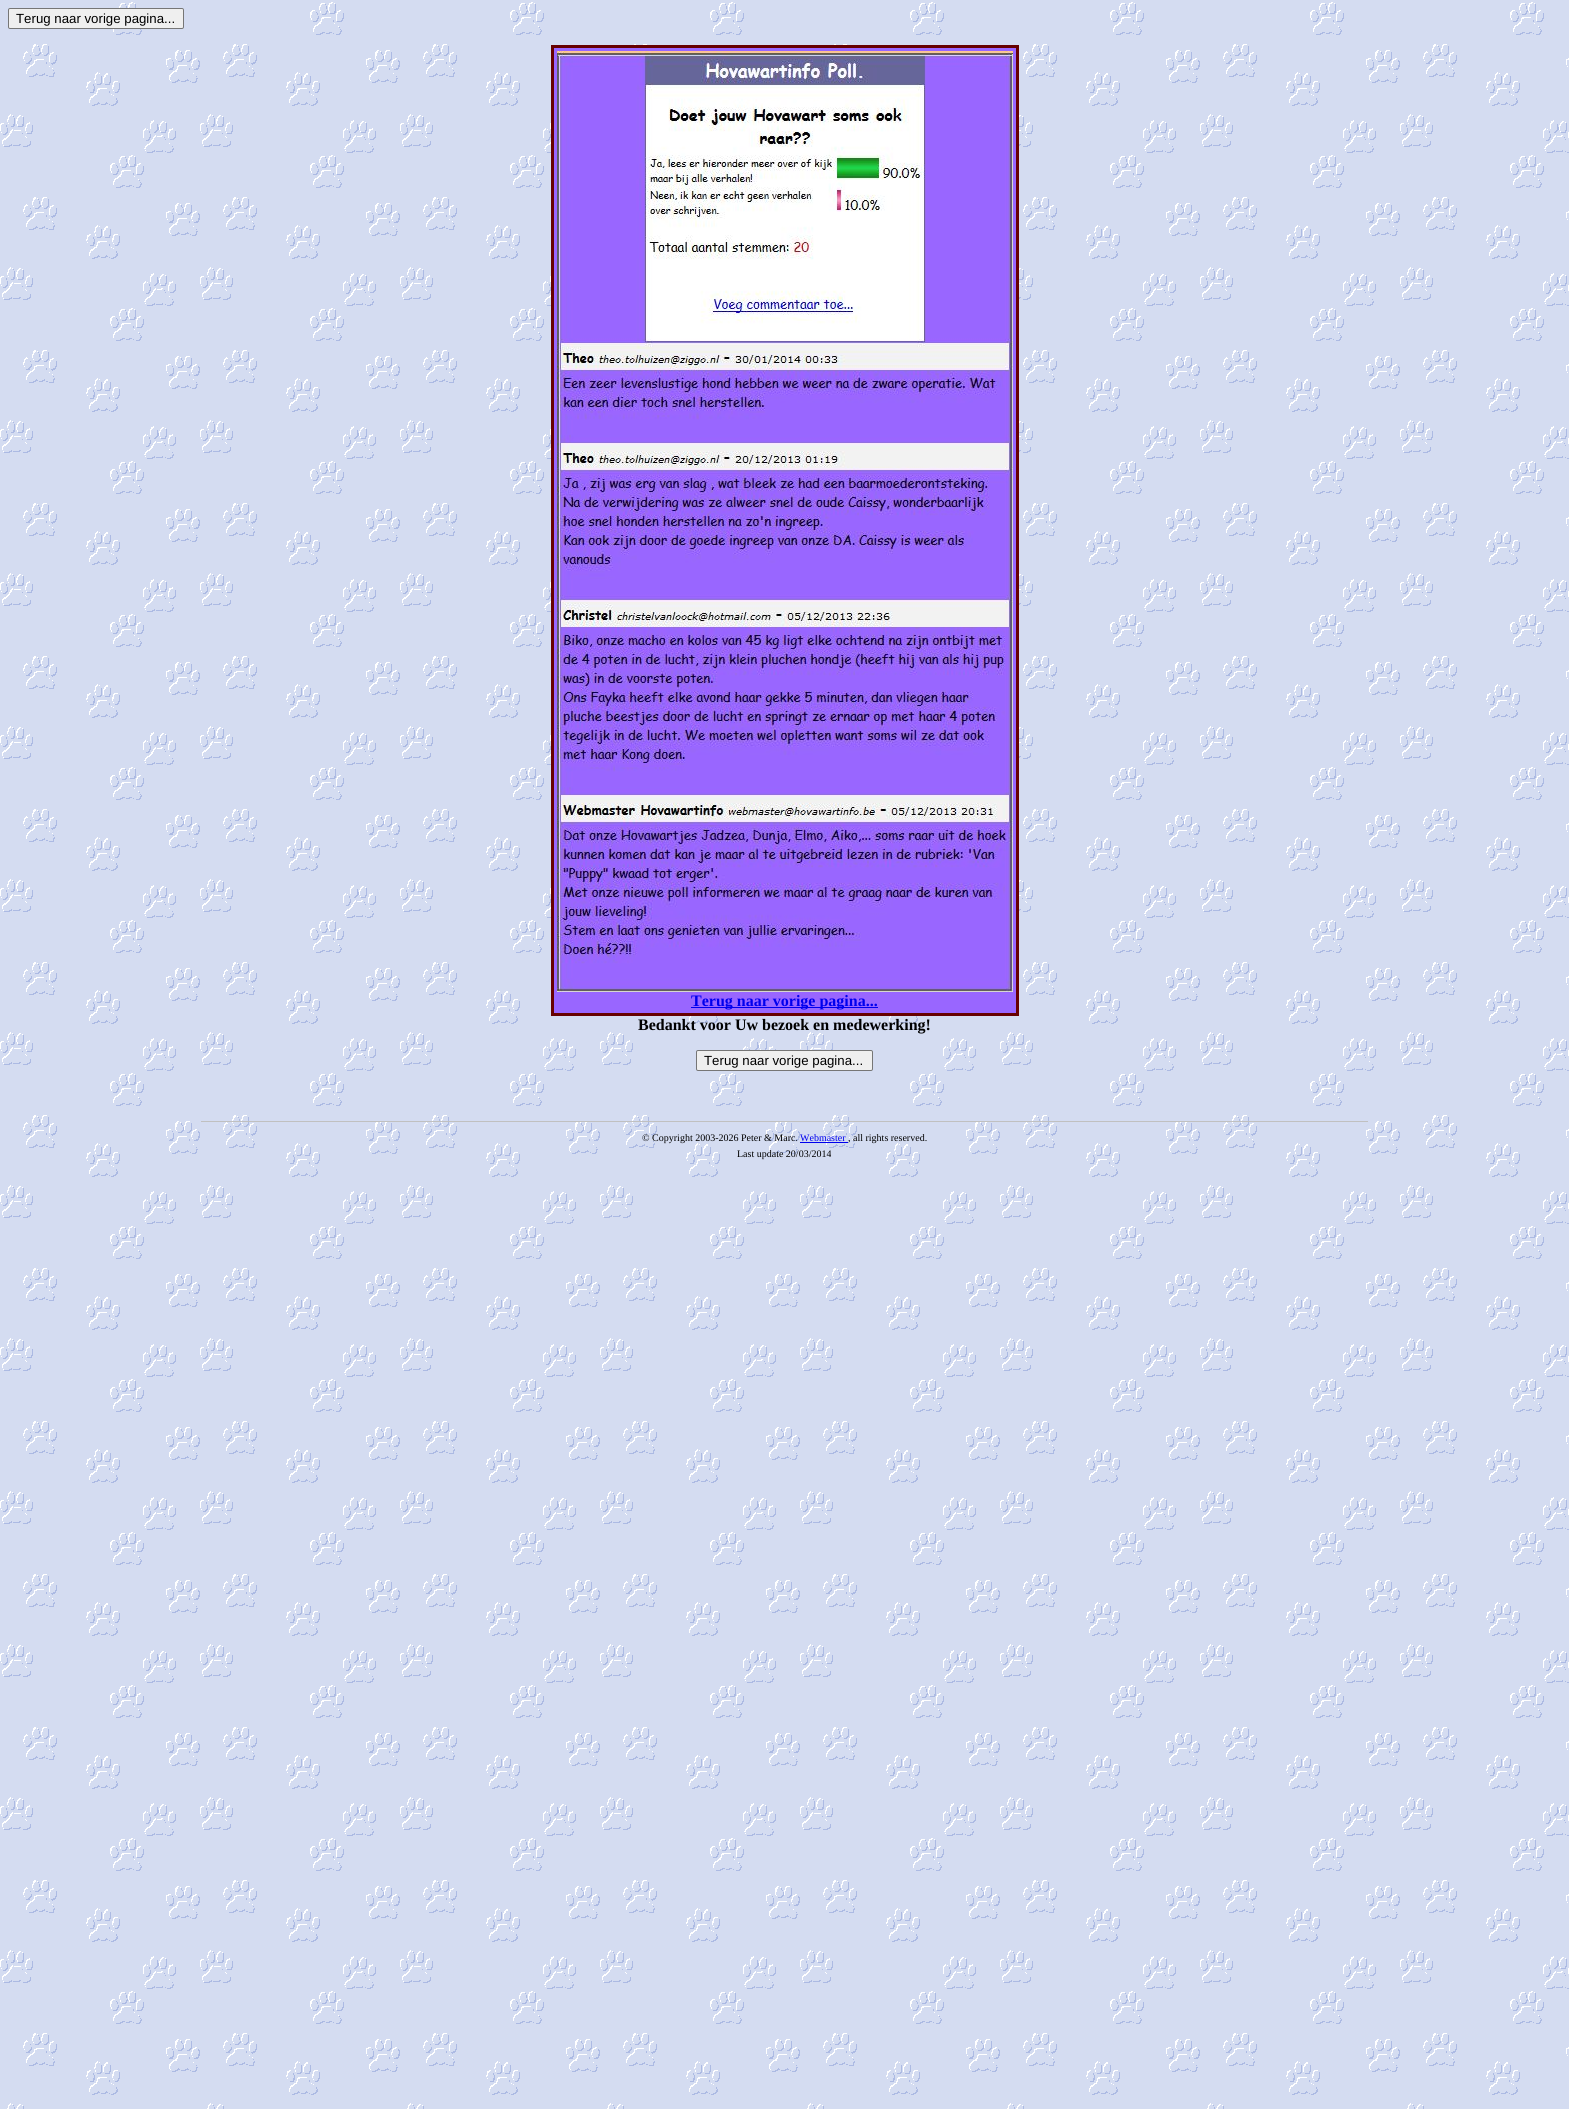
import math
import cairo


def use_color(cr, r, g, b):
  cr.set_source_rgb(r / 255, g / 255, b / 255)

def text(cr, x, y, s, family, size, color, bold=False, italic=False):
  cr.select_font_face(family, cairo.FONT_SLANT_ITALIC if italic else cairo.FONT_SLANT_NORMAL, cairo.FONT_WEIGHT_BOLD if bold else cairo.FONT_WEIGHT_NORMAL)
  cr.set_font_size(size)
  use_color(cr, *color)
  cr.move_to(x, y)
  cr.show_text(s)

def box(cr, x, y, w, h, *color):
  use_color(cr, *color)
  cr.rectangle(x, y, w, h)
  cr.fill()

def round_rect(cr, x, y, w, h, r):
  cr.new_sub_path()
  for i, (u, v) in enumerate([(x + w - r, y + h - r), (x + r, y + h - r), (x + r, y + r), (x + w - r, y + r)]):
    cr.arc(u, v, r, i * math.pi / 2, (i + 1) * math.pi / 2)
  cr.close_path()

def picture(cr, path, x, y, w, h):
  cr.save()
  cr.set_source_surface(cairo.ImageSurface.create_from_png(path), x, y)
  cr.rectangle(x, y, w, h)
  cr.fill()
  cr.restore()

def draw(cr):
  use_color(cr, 255, 255, 255)
  cr.paint()
  picture(cr, "img_01.png", 0, 0, 1569, 2109)
  use_color(cr, 239, 239, 239)
  round_rect(cr, 8.5, 8.5, 175, 20, 1.5)
  cr.fill_preserve()
  use_color(cr, 118, 118, 118)
  cr.set_line_width(1)
  cr.stroke()
  box(cr, 551, 45, 468, 971, 102, 0, 0)
  box(cr, 554, 48, 462, 965, 153, 102, 255)
  picture(cr, "img_02.png", 557, 51, 456, 941)
  box(cr, 691, 1007, 187, 1, 0, 0, 238)
  use_color(cr, 239, 239, 239)
  round_rect(cr, 696.5, 1050.5, 176, 20, 1.5)
  cr.fill_preserve()
  use_color(cr, 118, 118, 118)
  cr.stroke()
  box(cr, 201, 1121, 1167, 1, 192, 192, 192)
  box(cr, 800, 1142, 48, 1, 0, 0, 238)
  text(cr, 16, 23, "Terug naar vorige pagina...", "Liberation Sans", 13.25, (0, 0, 0))
  text(cr, 691, 1006, "Terug naar vorige pagina...", "Liberation Serif", 16, (0, 0, 238), bold=True)
  text(cr, 638, 1030, "Bedankt voor Uw bezoek en medewerking!", "Liberation Serif", 16, (0, 0, 0), bold=True)
  text(cr, 704, 1065, "Terug naar vorige pagina...", "Liberation Sans", 13.25, (0, 0, 0))
  text(cr, 642, 1141, "© Copyright 2003-2026 Peter & Marc.", "Liberation Serif", 10, (0, 0, 0))
  text(cr, 800, 1141, "Webmaster", "Liberation Serif", 10, (0, 0, 238))
  text(cr, 848, 1141, ", all rights reserved.", "Liberation Serif", 10, (0, 0, 0))
  text(cr, 737, 1157, "Last update 20/03/2014", "Liberation Serif", 10, (0, 0, 0))


surface = cairo.ImageSurface(cairo.FORMAT_RGB24, 1569, 2109)
cr = cairo.Context(surface)
options = cairo.FontOptions()
options.set_hint_metrics(cairo.HINT_METRICS_OFF)
options.set_hint_style(cairo.HINT_STYLE_NONE)
cr.set_font_options(options)
cr.set_miter_limit(4)
draw(cr)
surface.write_to_png("out.png")
